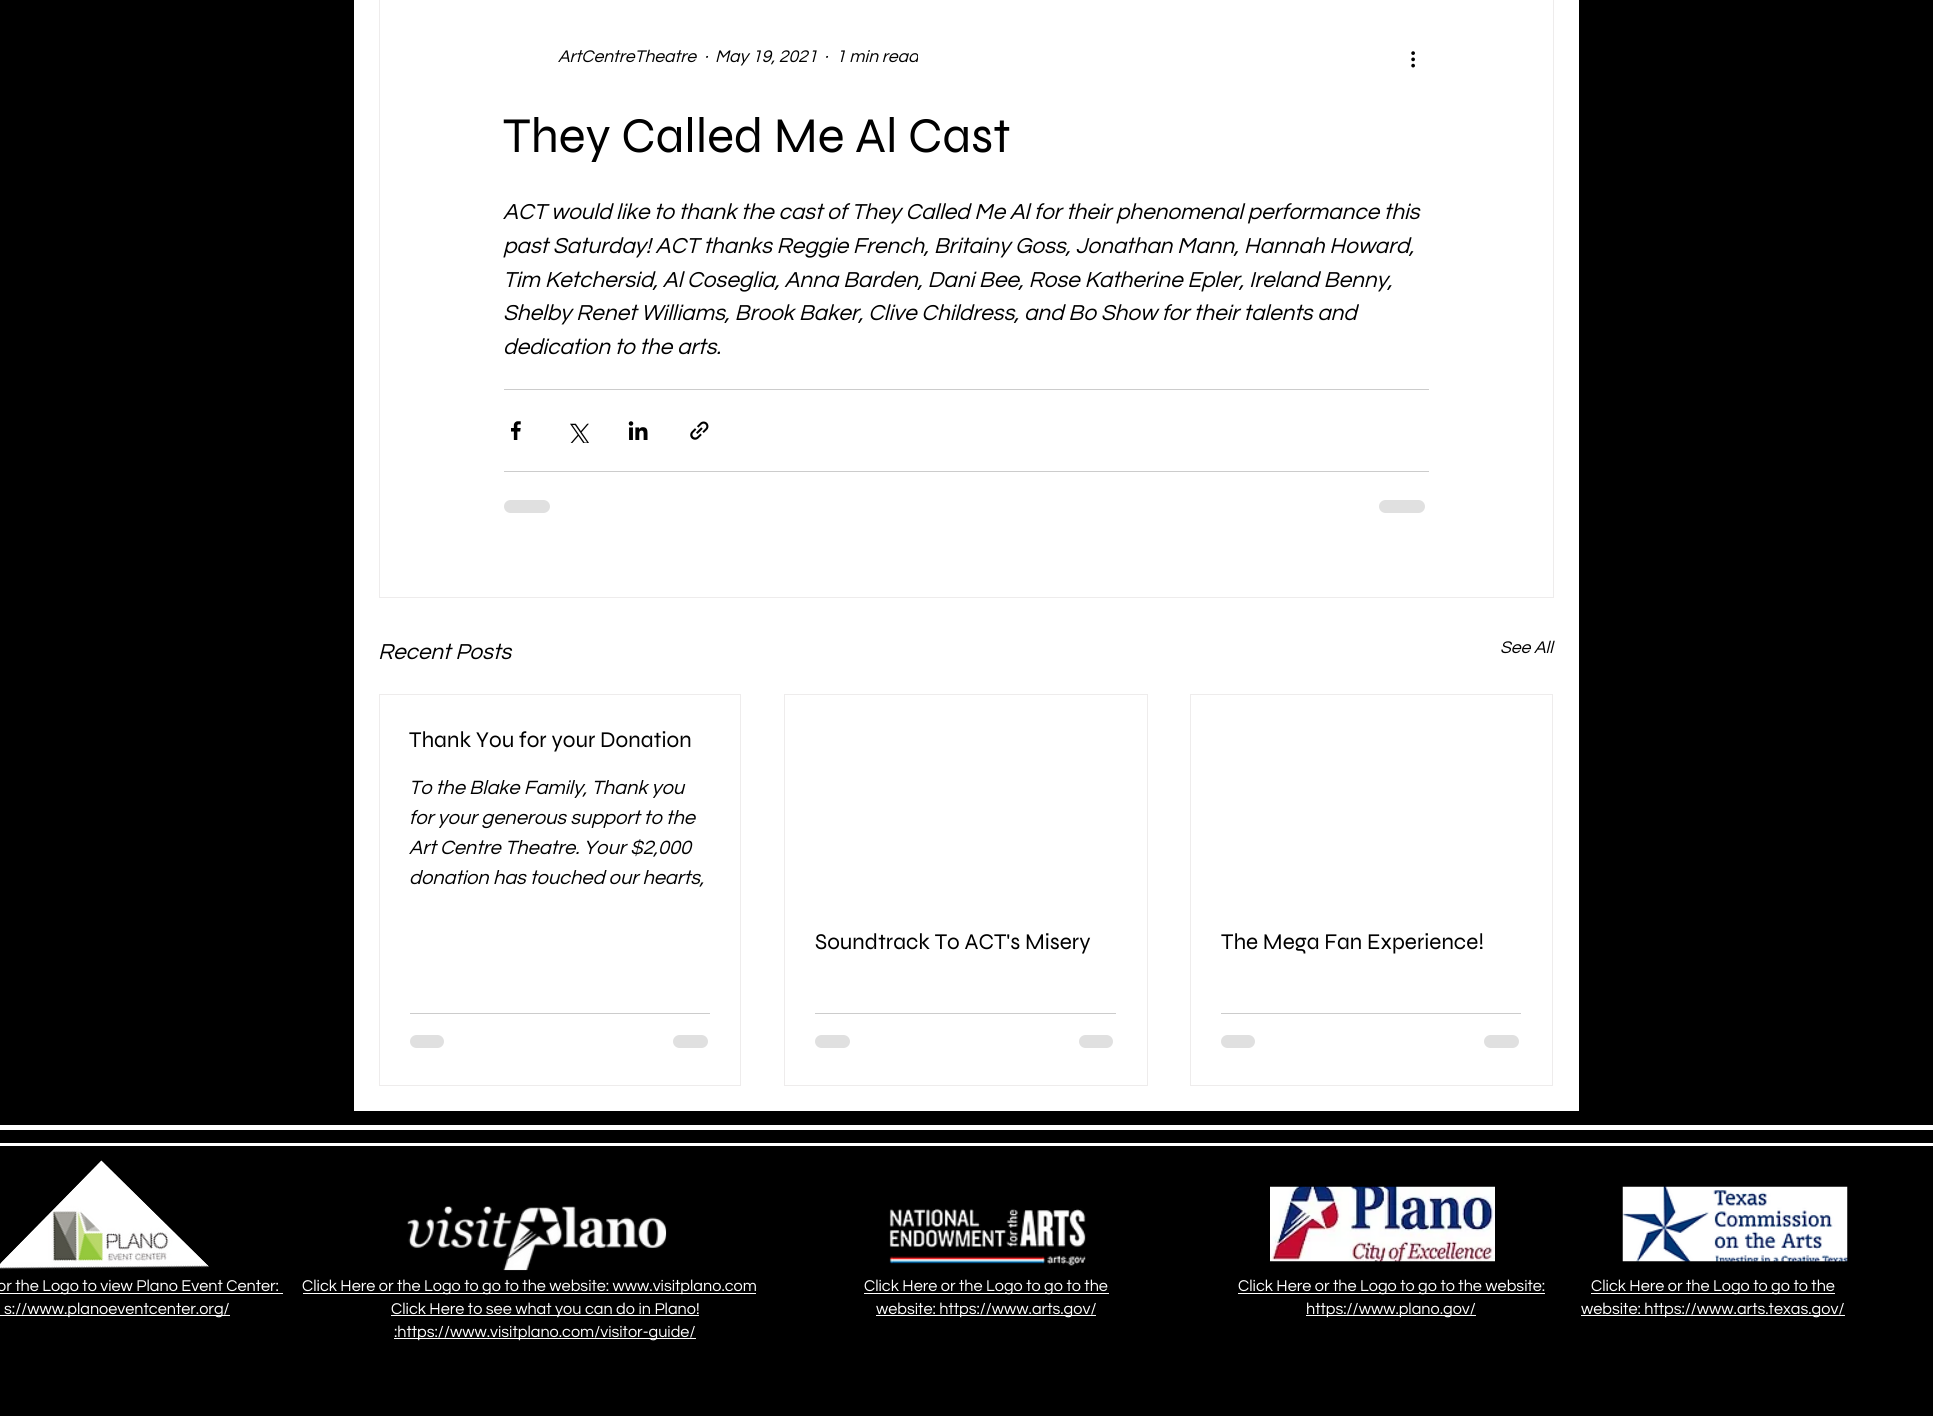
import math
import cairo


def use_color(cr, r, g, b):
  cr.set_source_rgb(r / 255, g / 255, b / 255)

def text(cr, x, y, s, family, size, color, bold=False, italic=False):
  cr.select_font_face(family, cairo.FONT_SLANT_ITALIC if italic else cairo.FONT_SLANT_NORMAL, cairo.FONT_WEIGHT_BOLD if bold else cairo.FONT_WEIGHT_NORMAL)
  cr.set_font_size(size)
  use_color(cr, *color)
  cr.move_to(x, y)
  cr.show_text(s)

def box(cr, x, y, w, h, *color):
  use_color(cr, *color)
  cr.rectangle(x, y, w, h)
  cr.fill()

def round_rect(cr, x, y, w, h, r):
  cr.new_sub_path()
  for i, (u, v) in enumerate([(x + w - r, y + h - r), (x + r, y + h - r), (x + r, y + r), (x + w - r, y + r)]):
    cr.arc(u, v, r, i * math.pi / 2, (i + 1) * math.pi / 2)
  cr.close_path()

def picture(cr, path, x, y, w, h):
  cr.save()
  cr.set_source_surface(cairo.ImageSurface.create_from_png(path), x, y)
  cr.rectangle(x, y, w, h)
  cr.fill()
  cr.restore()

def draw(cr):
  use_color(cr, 0, 0, 0)
  cr.paint()
  box(cr, 354, 0, 1225, 1111, 255, 255, 255)
  cr.rectangle(379.5, -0.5, 1174, 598)
  use_color(cr, 238, 236, 236)
  cr.set_line_width(1)
  cr.stroke()
  picture(cr, "img_01.png", 1411, 51, 4, 17)
  box(cr, 504, 389, 925, 1, 204, 204, 204)
  picture(cr, "img_02.png", 511, 421, 10, 19)
  picture(cr, "img_03.png", 570, 423, 19, 20)
  picture(cr, "img_04.png", 628, 421, 20, 19)
  picture(cr, "img_05.png", 690, 421, 19, 19)
  box(cr, 504, 471, 925, 1, 204, 204, 204)
  use_color(cr, 224, 224, 224)
  round_rect(cr, 504, 500, 46, 13, 6.5)
  cr.fill()
  round_rect(cr, 1379, 500, 46, 13, 6.5)
  cr.fill()
  cr.rectangle(379.5, 694.5, 361, 391)
  use_color(cr, 238, 236, 236)
  cr.stroke()
  box(cr, 410, 1013, 300, 1, 204, 204, 204)
  use_color(cr, 224, 224, 224)
  round_rect(cr, 410, 1035, 34, 13, 6.5)
  cr.fill()
  round_rect(cr, 673, 1035, 35, 13, 6.5)
  cr.fill()
  cr.rectangle(784.5, 694.5, 363, 391)
  use_color(cr, 238, 236, 236)
  cr.stroke()
  box(cr, 815, 1013, 301, 1, 204, 204, 204)
  use_color(cr, 224, 224, 224)
  round_rect(cr, 815, 1035, 35, 13, 6.5)
  cr.fill()
  round_rect(cr, 1079, 1035, 34, 13, 6.5)
  cr.fill()
  cr.rectangle(1190.5, 694.5, 362, 391)
  use_color(cr, 238, 236, 236)
  cr.stroke()
  box(cr, 1221, 1013, 300, 1, 204, 204, 204)
  use_color(cr, 224, 224, 224)
  round_rect(cr, 1221, 1035, 34, 13, 6.5)
  cr.fill()
  round_rect(cr, 1484, 1035, 35, 13, 6.5)
  cr.fill()
  box(cr, 0, 1125, 1933, 5, 255, 255, 255)
  box(cr, 0, 1143, 1933, 3, 255, 255, 255)
  picture(cr, "img_06.png", 0, 1160, 209, 110)
  picture(cr, "img_07.png", 407, 1206, 260, 65)
  picture(cr, "img_08.png", 889, 1208, 197, 58)
  picture(cr, "img_09.png", 1270, 1186, 225, 76)
  picture(cr, "img_10.png", 1622, 1186, 226, 76)
  box(cr, 0, 1293, 283, 1, 255, 255, 255)
  box(cr, 0, 1315, 230, 1, 255, 255, 255)
  box(cr, 303, 1293, 453, 1, 255, 255, 255)
  box(cr, 864, 1293, 245, 1, 255, 255, 255)
  box(cr, 876, 1315, 220, 1, 255, 255, 255)
  box(cr, 1238, 1293, 307, 1, 255, 255, 255)
  box(cr, 1306, 1315, 170, 1, 255, 255, 255)
  box(cr, 1591, 1293, 244, 1, 255, 255, 255)
  box(cr, 1581, 1315, 264, 1, 255, 255, 255)
  box(cr, 391, 1315, 308, 1, 255, 255, 255)
  box(cr, 394, 1338, 302, 1, 255, 255, 255)
  text(cr, 558, 62, "ArtCentreTheatre", "Questrial", 17.5, (0, 0, 0), italic=True)
  text(cr, 704, 62, "·", "Questrial", 17.5, (0, 0, 0), italic=True)
  text(cr, 715, 62, "May 19, 2021", "Questrial", 17.5, (0, 0, 0), italic=True)
  text(cr, 824, 62, "·", "Questrial", 17.5, (0, 0, 0), italic=True)
  cr.save()
  cr.rectangle(818, 45, 100, 26)
  cr.clip()
  text(cr, 836, 62, "1 min read", "Questrial", 17.5, (0, 0, 0), italic=True)
  cr.restore()
  text(cr, 503, 152, "They Called Me Al Cast", "Syne", 50, (0, 0, 0))
  text(cr, 503, 219, "ACT would like to thank the cast of They Called Me Al for their phenomenal performance this", "Questrial", 22.5, (0, 0, 0), italic=True)
  text(cr, 503, 253, "past Saturday! ACT thanks Reggie French, Britainy Goss, Jonathan Mann, Hannah Howard,", "Questrial", 22.5, (0, 0, 0), italic=True)
  text(cr, 503, 287, "Tim Ketchersid, Al Coseglia, Anna Barden, Dani Bee, Rose Katherine Epler, Ireland Benny,", "Questrial", 22.5, (0, 0, 0), italic=True)
  text(cr, 503, 320, "Shelby Renet Williams, Brook Baker, Clive Childress, and Bo Show for their talents and", "Questrial", 22.5, (0, 0, 0), italic=True)
  text(cr, 503, 354, "dedication to the arts.", "Questrial", 22.5, (0, 0, 0), italic=True)
  text(cr, 378, 659, "Recent Posts", "Questrial", 22.5, (0, 0, 0), italic=True)
  text(cr, 1500, 653, "See All", "Questrial", 17.5, (0, 0, 0), italic=True)
  text(cr, 409, 747, "Thank You for your Donation", "Syne", 22.5, (0, 0, 0))
  text(cr, 409, 794, "To the Blake Family, Thank you", "Questrial", 20, (0, 0, 0), italic=True)
  text(cr, 409, 824, "for your generous support to the", "Questrial", 20, (0, 0, 0), italic=True)
  text(cr, 409, 854, "Art Centre Theatre. Your $2,000", "Questrial", 20, (0, 0, 0), italic=True)
  text(cr, 409, 884, "donation has touched our hearts,", "Questrial", 20, (0, 0, 0), italic=True)
  text(cr, 815, 949, "Soundtrack To ACT's Misery", "Syne", 22.5, (0, 0, 0))
  text(cr, 1221, 949, "The Mega Fan Experience!", "Syne", 22.5, (0, 0, 0))
  text(cr, -3, 1291, "or the Logo to view Plano Event Center:", "Questrial", 16.25, (255, 255, 255))
  text(cr, 4, 1314, "s://www.planoeventcenter.org/", "Questrial", 16.25, (255, 255, 255))
  text(cr, 302, 1291, "Click Here or the Logo to go to the website: www.visitplano.com", "Questrial", 16.25, (255, 255, 255))
  text(cr, 864, 1291, "Click Here or the Logo to go to the", "Questrial", 16.25, (255, 255, 255))
  text(cr, 876, 1314, "website: https://www.arts.gov/", "Questrial", 16.25, (255, 255, 255))
  text(cr, 1238, 1291, "Click Here or the Logo to go to the website:", "Questrial", 16.25, (255, 255, 255))
  text(cr, 1306, 1314, "https://www.plano.gov/", "Questrial", 16.25, (255, 255, 255))
  text(cr, 1591, 1291, "Click Here or the Logo to go to the", "Questrial", 16.25, (255, 255, 255))
  text(cr, 1581, 1314, "website: https://www.arts.texas.gov/", "Questrial", 16.25, (255, 255, 255))
  text(cr, 391, 1314, "Click Here to see what you can do in Plano!", "Questrial", 16.25, (255, 255, 255))
  text(cr, 394, 1337, ":https://www.visitplano.com/visitor-guide/", "Questrial", 16.25, (255, 255, 255))


surface = cairo.ImageSurface(cairo.FORMAT_RGB24, 1933, 1416)
cr = cairo.Context(surface)
options = cairo.FontOptions()
options.set_hint_metrics(cairo.HINT_METRICS_OFF)
options.set_hint_style(cairo.HINT_STYLE_NONE)
cr.set_font_options(options)
cr.set_miter_limit(4)
draw(cr)
surface.write_to_png("out.png")
